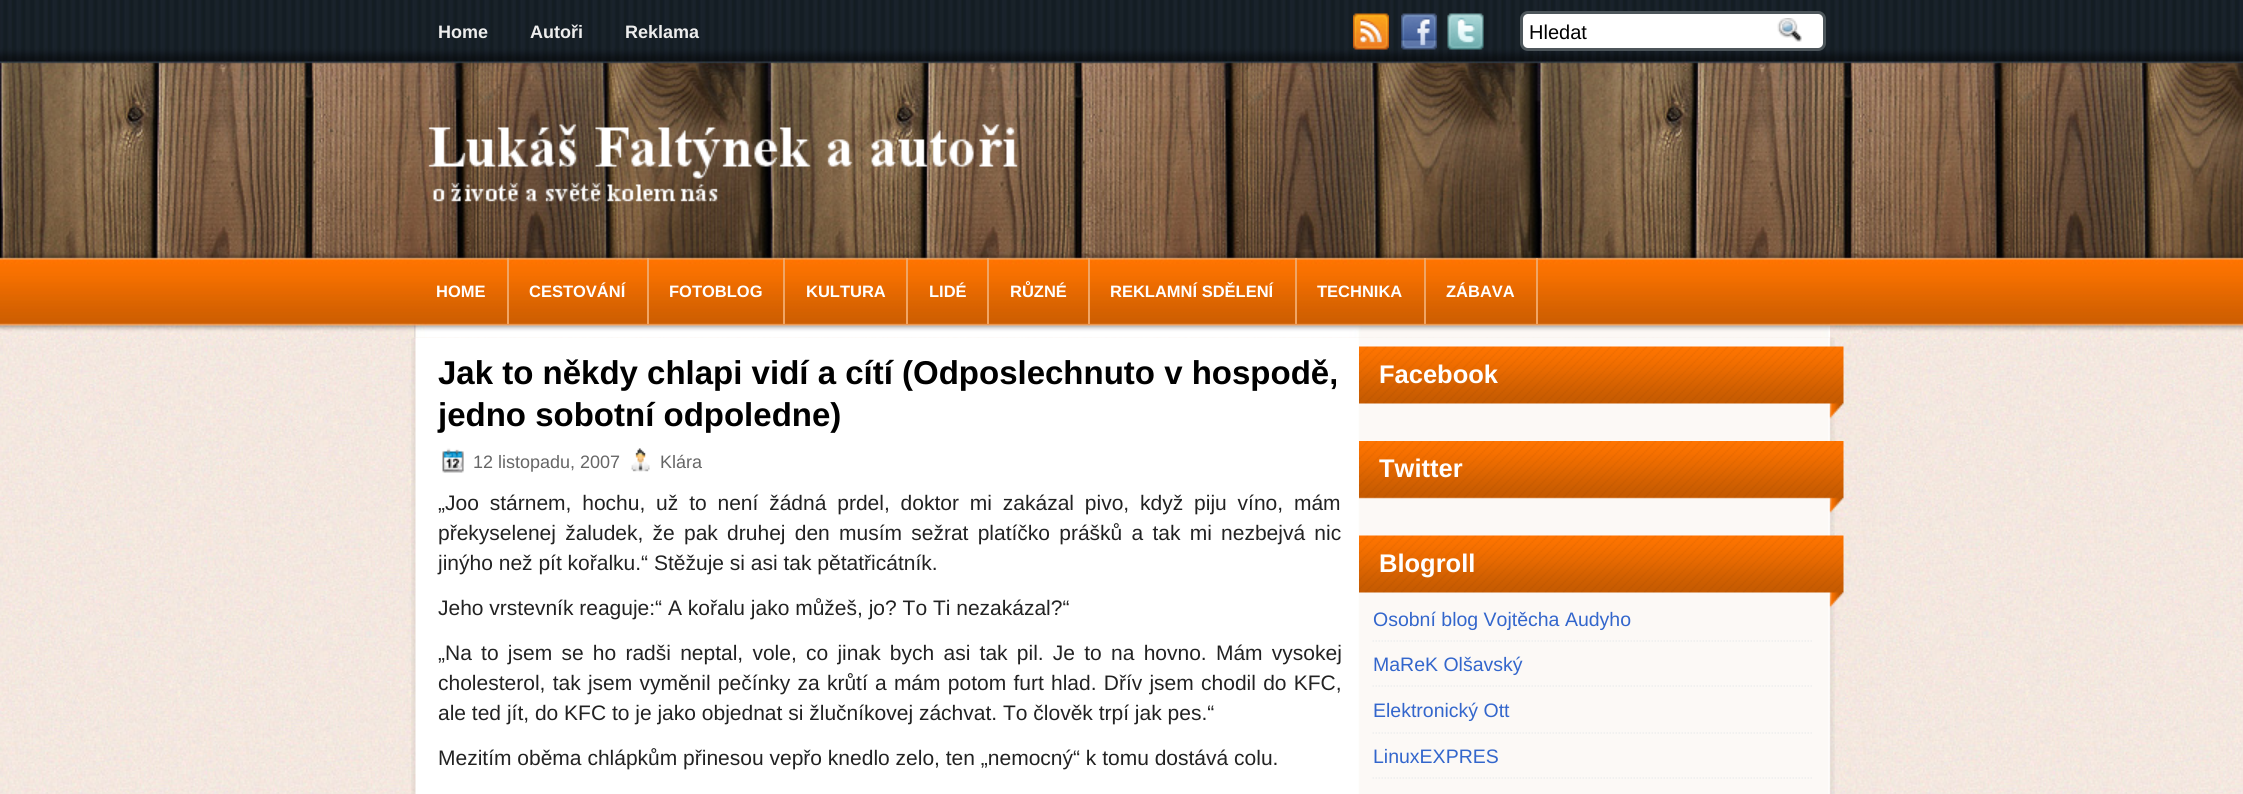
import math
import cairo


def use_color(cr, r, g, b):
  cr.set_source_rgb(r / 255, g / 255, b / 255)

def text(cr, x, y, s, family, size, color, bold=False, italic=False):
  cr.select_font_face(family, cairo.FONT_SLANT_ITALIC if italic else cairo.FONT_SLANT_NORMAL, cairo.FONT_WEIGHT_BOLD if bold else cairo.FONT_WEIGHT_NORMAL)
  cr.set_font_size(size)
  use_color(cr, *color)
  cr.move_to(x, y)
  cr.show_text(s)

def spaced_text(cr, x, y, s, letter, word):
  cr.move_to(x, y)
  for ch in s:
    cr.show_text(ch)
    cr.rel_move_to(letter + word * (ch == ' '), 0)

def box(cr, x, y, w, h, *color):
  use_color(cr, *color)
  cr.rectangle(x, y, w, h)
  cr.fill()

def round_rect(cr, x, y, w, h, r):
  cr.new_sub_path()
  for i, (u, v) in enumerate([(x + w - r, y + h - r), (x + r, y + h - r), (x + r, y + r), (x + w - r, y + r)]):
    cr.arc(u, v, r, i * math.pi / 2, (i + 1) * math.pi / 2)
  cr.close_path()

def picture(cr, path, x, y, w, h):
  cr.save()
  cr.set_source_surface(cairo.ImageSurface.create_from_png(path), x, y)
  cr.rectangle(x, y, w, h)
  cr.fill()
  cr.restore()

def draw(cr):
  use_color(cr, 255, 255, 255)
  cr.paint()
  picture(cr, "img_01.png", 0, 339, 2243, 455)
  picture(cr, "img_02.png", 0, 0, 2243, 339)
  picture(cr, "img_03.png", 1353, 13, 36, 37)
  picture(cr, "img_04.png", 1401, 13, 36, 37)
  picture(cr, "img_05.png", 1447, 13, 37, 37)
  use_color(cr, 255, 255, 255)
  round_rect(cr, 1521.5, 12.5, 303, 37, 6.5)
  cr.fill_preserve()
  use_color(cr, 77, 86, 91)
  cr.set_line_width(3)
  cr.stroke()
  picture(cr, "img_06.png", 1777, 18, 25, 24)
  picture(cr, "img_07.png", 428, 124, 590, 78)
  picture(cr, "img_09.png", 411, 337, 1424, 457)
  picture(cr, "img_08.png", 414, 323, 1416, 15)
  box(cr, 507, 258, 2, 66, 240, 165, 100)
  box(cr, 647, 258, 2, 66, 240, 165, 100)
  box(cr, 783, 258, 2, 66, 240, 165, 100)
  box(cr, 906, 258, 2, 66, 240, 165, 100)
  box(cr, 987, 258, 2, 66, 240, 165, 100)
  box(cr, 1088, 258, 2, 66, 240, 165, 100)
  box(cr, 1295, 258, 2, 66, 240, 165, 100)
  box(cr, 1424, 258, 2, 66, 240, 165, 100)
  box(cr, 1536, 258, 2, 66, 240, 165, 100)
  picture(cr, "img_10.png", 442, 448, 22, 25)
  picture(cr, "img_11.png", 631, 448, 19, 24)
  picture(cr, "img_12.png", 1359, 346, 485, 73)
  picture(cr, "img_13.png", 1359, 441, 485, 72)
  picture(cr, "img_14.png", 1359, 535, 485, 73)
  cr.new_path()
  cr.move_to(1372.5, 641)
  cr.line_to(1813.5, 641)
  use_color(cr, 238, 238, 238)
  cr.set_line_width(1.5)
  cr.set_dash([1.5, 1.5])
  cr.stroke()
  cr.new_path()
  cr.move_to(1372.5, 686)
  cr.line_to(1813.5, 686)
  cr.stroke()
  cr.new_path()
  cr.move_to(1372.5, 733)
  cr.line_to(1813.5, 733)
  cr.stroke()
  cr.new_path()
  cr.move_to(1372.5, 778)
  cr.line_to(1813.5, 778)
  cr.stroke()
  text(cr, 438, 38, "Home", "Liberation Sans", 18, (238, 238, 238), bold=True)
  text(cr, 530, 38, "Autoři", "Liberation Sans", 18, (238, 238, 238), bold=True)
  text(cr, 625, 38, "Reklama", "Liberation Sans", 18, (238, 238, 238), bold=True)
  text(cr, 1529, 39, "Hledat", "Liberation Sans", 20, (0, 0, 0))
  text(cr, 436, 297, "HOME", "Liberation Sans", 16.5, (255, 255, 255), bold=True)
  text(cr, 529, 297, "CESTOVÁNÍ", "Liberation Sans", 16.5, (255, 255, 255), bold=True)
  text(cr, 669, 297, "FOTOBLOG", "Liberation Sans", 16.5, (255, 255, 255), bold=True)
  text(cr, 806, 297, "KULTURA", "Liberation Sans", 16.5, (255, 255, 255), bold=True)
  text(cr, 929, 297, "LIDÉ", "Liberation Sans", 16.5, (255, 255, 255), bold=True)
  text(cr, 1010, 297, "RŮZNÉ", "Liberation Sans", 16.5, (255, 255, 255), bold=True)
  text(cr, 1110, 297, "REKLAMNÍ SDĚLENÍ", "Liberation Sans", 16.5, (255, 255, 255), bold=True)
  text(cr, 1317, 297, "TECHNIKA", "Liberation Sans", 16.5, (255, 255, 255), bold=True)
  text(cr, 1446, 297, "ZÁBAVA", "Liberation Sans", 16.5, (255, 255, 255), bold=True)
  text(cr, 438, 384, "Jak to někdy chlapi vidí a cítí (Odposlechnuto v hospodě,", "Liberation Sans", 33, (0, 0, 0), bold=True)
  text(cr, 438, 426, "jedno sobotní odpoledne)", "Liberation Sans", 33, (0, 0, 0), bold=True)
  text(cr, 473, 468, "12 listopadu, 2007", "Liberation Sans", 18, (102, 102, 102))
  text(cr, 660, 468, "Klára", "Liberation Sans", 18, (102, 102, 102))
  cr.set_font_size(21)
  use_color(cr, 34, 34, 34)
  spaced_text(cr, 438, 510, "„Joo stárnem, hochu, už to není žádná prdel, doktor mi zakázal pivo, když piju víno, mám", 0, 5)
  spaced_text(cr, 438, 540, "překyselenej žaludek, že pak druhej den musím sežrat platíčko prášků a tak mi nezbejvá nic", 0, 3.4)
  text(cr, 438, 570, "jinýho než pít kořalku.“ Stěžuje si asi tak pětatřicátník.", "Liberation Sans", 21, (34, 34, 34))
  text(cr, 438, 615, "Jeho vrstevník reaguje:“ A kořalu jako můžeš, jo? To Ti nezakázal?“", "Liberation Sans", 21, (34, 34, 34))
  spaced_text(cr, 438, 660, "„Na to jsem se ho radši neptal, vole, co jinak bych asi tak pil. Je to na hovno. Mám vysokej", 0, 3.4)
  spaced_text(cr, 438, 690, "cholesterol, tak jsem vyměnil pečínky za krůtí a mám potom furt hlad. Dřív jsem chodil do KFC,", 0, 1.4)
  text(cr, 438, 720, "ale ted jít, do KFC to je jako objednat si žlučníkovej záchvat. To člověk trpí jak pes.“", "Liberation Sans", 21, (34, 34, 34))
  text(cr, 438, 765, "Mezitím oběma chlápkům přinesou vepřo knedlo zelo, ten „nemocný“ k tomu dostává colu.", "Liberation Sans", 21, (34, 34, 34))
  text(cr, 1379, 383, "Facebook", "Liberation Sans", 25.5, (255, 255, 255), bold=True)
  text(cr, 1379, 477, "Twitter", "Liberation Sans", 25.5, (255, 255, 255), bold=True)
  text(cr, 1379, 572, "Blogroll", "Liberation Sans", 25.5, (255, 255, 255), bold=True)
  text(cr, 1373, 626, "Osobní blog Vojtěcha Audyho", "Liberation Sans", 19.5, (51, 102, 204))
  text(cr, 1373, 671, "MaReK Olšavský", "Liberation Sans", 19.5, (51, 102, 204))
  text(cr, 1373, 717, "Elektronický Ott", "Liberation Sans", 19.5, (51, 102, 204))
  text(cr, 1373, 763, "LinuxEXPRES", "Liberation Sans", 19.5, (51, 102, 204))


surface = cairo.ImageSurface(cairo.FORMAT_RGB24, 2243, 794)
cr = cairo.Context(surface)
options = cairo.FontOptions()
options.set_hint_metrics(cairo.HINT_METRICS_OFF)
options.set_hint_style(cairo.HINT_STYLE_NONE)
cr.set_font_options(options)
cr.set_miter_limit(4)
draw(cr)
surface.write_to_png("out.png")
